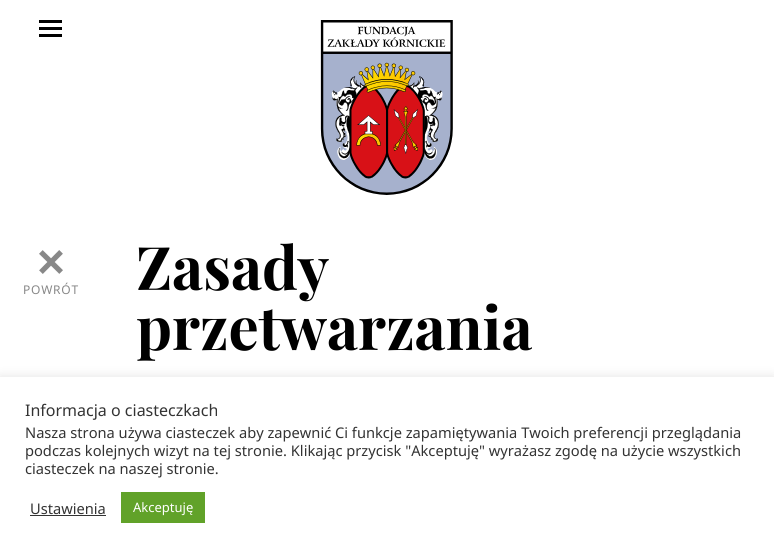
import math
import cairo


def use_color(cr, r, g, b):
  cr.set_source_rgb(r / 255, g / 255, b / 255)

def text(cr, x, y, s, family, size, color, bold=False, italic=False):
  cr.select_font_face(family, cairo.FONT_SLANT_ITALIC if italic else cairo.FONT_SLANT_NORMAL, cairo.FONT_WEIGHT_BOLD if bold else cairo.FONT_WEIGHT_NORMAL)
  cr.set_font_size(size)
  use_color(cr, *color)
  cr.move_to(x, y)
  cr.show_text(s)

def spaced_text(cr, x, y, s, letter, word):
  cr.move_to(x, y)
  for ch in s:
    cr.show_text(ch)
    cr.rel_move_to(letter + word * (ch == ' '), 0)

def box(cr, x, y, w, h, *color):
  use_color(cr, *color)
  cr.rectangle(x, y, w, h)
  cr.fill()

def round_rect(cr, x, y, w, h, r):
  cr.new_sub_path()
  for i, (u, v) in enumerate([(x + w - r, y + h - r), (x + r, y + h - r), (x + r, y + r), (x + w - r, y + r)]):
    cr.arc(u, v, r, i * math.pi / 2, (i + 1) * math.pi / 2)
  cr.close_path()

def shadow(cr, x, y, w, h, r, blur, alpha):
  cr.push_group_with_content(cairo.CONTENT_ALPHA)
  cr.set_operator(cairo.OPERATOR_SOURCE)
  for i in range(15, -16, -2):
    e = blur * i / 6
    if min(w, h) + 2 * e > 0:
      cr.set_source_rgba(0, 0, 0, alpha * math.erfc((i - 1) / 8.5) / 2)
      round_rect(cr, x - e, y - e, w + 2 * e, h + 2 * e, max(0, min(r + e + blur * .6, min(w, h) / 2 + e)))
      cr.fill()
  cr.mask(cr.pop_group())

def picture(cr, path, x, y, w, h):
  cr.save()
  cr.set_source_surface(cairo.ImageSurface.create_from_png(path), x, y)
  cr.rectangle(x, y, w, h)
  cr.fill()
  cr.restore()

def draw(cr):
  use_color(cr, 255, 255, 255)
  cr.paint()
  box(cr, 39, 20, 23, 3, 0, 0, 0)
  box(cr, 39, 27, 23, 3, 0, 0, 0)
  box(cr, 39, 34, 23, 3, 0, 0, 0)
  picture(cr, "img_01.png", 320, 20, 133, 175)
  picture(cr, "img_02.png", 39, 250, 24, 24)
  use_color(cr, 172, 171, 171)
  shadow(cr, 0, 376, 774, 176, 0, 5, 0.3)
  box(cr, 0, 377, 774, 176, 255, 255, 255)
  box(cr, 30, 515, 76, 1, 51, 51, 51)
  box(cr, 121, 492, 84, 31, 97, 162, 41)
  cr.select_font_face("Noto Sans")
  cr.set_font_size(12)
  use_color(cr, 136, 136, 136)
  spaced_text(cr, 23, 294, "POWRÓT", 0.75, 0)
  text(cr, 136, 290, "Zasady", "Playfair Display", 60, (0, 0, 0), bold=True)
  text(cr, 136, 350, "przetwarzania", "Playfair Display", 60, (0, 0, 0), bold=True)
  text(cr, 25, 416, "Informacja o ciasteczkach", "Noto Sans", 16, (51, 51, 51))
  text(cr, 25, 438, "Nasza strona używa ciasteczek aby zapewnić Ci funkcje zapamiętywania Twoich preferencji przeglądania", "Noto Sans", 14.65, (51, 51, 51))
  text(cr, 25, 456, "podczas kolejnych wizyt na tej stronie. Klikając przycisk \"Akceptuję\" wyrażasz zgodę na użycie wszystkich", "Noto Sans", 14.65, (51, 51, 51))
  text(cr, 25, 474, "ciasteczek na naszej stronie.", "Noto Sans", 14.65, (51, 51, 51))
  text(cr, 30, 514, "Ustawienia", "Noto Sans", 14.65, (51, 51, 51))
  text(cr, 133, 512, "Akceptuję", "Noto Sans", 13, (255, 255, 255))


surface = cairo.ImageSurface(cairo.FORMAT_RGB24, 774, 553)
cr = cairo.Context(surface)
options = cairo.FontOptions()
options.set_hint_metrics(cairo.HINT_METRICS_OFF)
options.set_hint_style(cairo.HINT_STYLE_NONE)
cr.set_font_options(options)
cr.set_miter_limit(4)
draw(cr)
surface.write_to_png("out.png")
